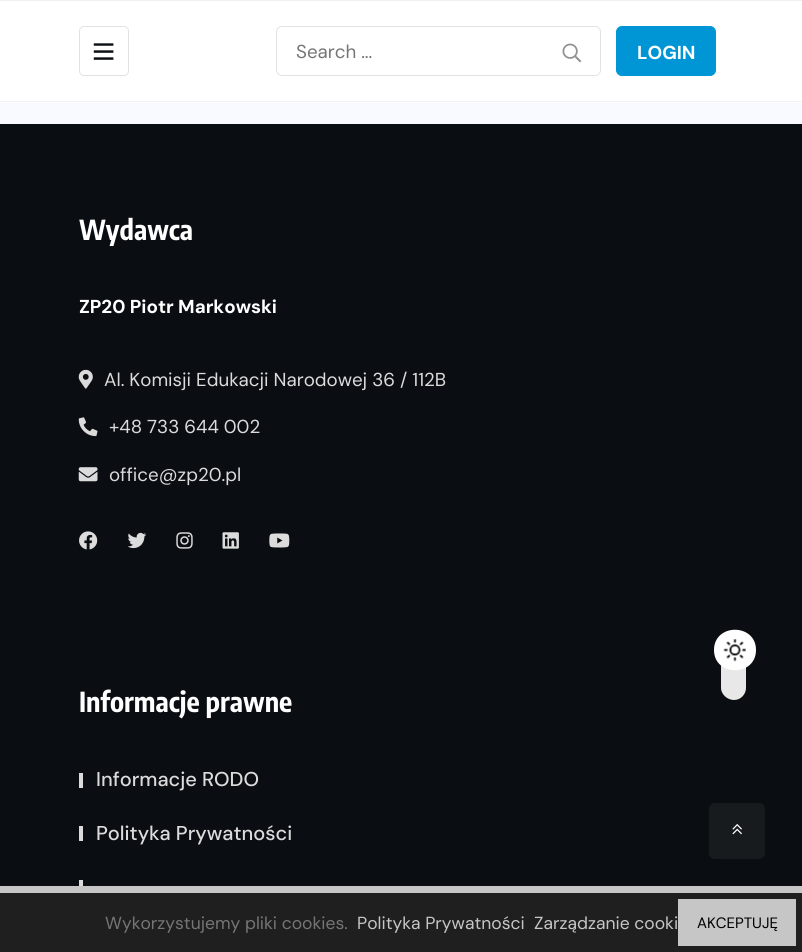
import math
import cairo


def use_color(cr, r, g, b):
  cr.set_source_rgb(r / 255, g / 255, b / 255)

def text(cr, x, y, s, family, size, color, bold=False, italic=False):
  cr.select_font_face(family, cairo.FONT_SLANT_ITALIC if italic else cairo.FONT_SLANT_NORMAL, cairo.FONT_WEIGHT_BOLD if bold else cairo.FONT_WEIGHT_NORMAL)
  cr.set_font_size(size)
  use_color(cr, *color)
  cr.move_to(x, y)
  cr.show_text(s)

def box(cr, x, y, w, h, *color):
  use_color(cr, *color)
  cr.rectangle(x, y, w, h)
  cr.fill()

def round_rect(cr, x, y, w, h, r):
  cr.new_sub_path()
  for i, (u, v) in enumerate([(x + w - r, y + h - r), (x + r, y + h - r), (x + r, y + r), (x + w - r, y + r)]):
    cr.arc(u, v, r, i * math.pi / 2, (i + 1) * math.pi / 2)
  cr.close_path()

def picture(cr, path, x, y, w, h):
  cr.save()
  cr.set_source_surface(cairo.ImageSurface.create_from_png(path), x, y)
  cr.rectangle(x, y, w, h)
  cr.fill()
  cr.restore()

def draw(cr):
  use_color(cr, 249, 250, 255)
  cr.paint()
  box(cr, 0, 1, 802, 102, 255, 255, 255)
  box(cr, 0, 0, 802, 1, 240, 240, 240)
  box(cr, 0, 101, 802, 1, 240, 240, 240)
  round_rect(cr, 79.5, 26.5, 49, 49, 4.5)
  use_color(cr, 226, 226, 226)
  cr.set_line_width(1)
  cr.stroke()
  picture(cr, "img_01.png", 93, 43, 21, 17)
  round_rect(cr, 276.5, 26.5, 324, 49, 5.5)
  cr.stroke()
  use_color(cr, 255, 255, 255)
  round_rect(cr, 278, 28, 322, 47, 5)
  cr.fill()
  picture(cr, "img_02.png", 562, 43, 20, 20)
  use_color(cr, 0, 149, 213)
  round_rect(cr, 616.5, 26.5, 99, 49, 5.5)
  cr.fill_preserve()
  cr.stroke()
  box(cr, 0, 124, 802, 762, 10, 13, 18)
  picture(cr, "img_03.png", 78, 369, 15, 20)
  picture(cr, "img_04.png", 78, 417, 20, 20)
  picture(cr, "img_05.png", 78, 467, 20, 15)
  picture(cr, "img_06.png", 79, 531, 19, 19)
  picture(cr, "img_07.png", 127, 532, 20, 17)
  picture(cr, "img_08.png", 176, 532, 17, 17)
  picture(cr, "img_09.png", 222, 532, 17, 17)
  picture(cr, "img_10.png", 269, 533, 21, 15)
  box(cr, 79, 773, 4, 15, 219, 219, 219)
  box(cr, 79, 826, 4, 15, 219, 219, 219)
  box(cr, 79, 880, 4, 6, 219, 219, 219)
  use_color(cr, 232, 232, 232)
  cr.new_path()
  cr.move_to(746, 644)
  cr.line_to(746, 688)
  cr.curve_to(746, 694, 741, 700, 734, 700)
  cr.curve_to(727, 700, 721, 694, 721, 688)
  cr.line_to(721, 644)
  cr.curve_to(721, 637, 727, 631, 734, 631)
  cr.curve_to(741, 631, 746, 637, 746, 644)
  cr.close_path()
  cr.fill()
  use_color(cr, 255, 255, 255)
  cr.new_path()
  cr.move_to(756, 650)
  cr.curve_to(756, 677, 714, 677, 714, 650)
  cr.curve_to(714, 623, 756, 623, 756, 650)
  cr.close_path()
  cr.fill()
  picture(cr, "img_11.png", 723, 639, 23, 23)
  use_color(cr, 24, 27, 30)
  round_rect(cr, 709, 803, 56, 56, 6)
  cr.fill()
  picture(cr, "img_12.png", 732, 824, 10, 11)
  box(cr, 0, 893, 802, 59, 31, 31, 31)
  box(cr, 0, 886, 802, 7, 198, 198, 198)
  box(cr, 678, 899, 118, 47, 198, 198, 198)
  text(cr, 296, 58, "Search ...", "DM Sans", 18.75, (117, 117, 117))
  text(cr, 637, 59, "LOGIN", "DM Sans", 18.75, (255, 255, 255), bold=True)
  text(cr, 79, 240, "Wydawca", "Encode Sans Condensed", 27.5, (255, 255, 255), bold=True)
  text(cr, 79, 313, "ZP20 Piotr Markowski", "DM Sans", 18.75, (255, 255, 255), bold=True)
  text(cr, 104, 386, "Al. Komisji Edukacji Narodowej 36 / 112B", "DM Sans", 18.75, (219, 219, 219))
  text(cr, 109, 433, "+48 733 644 002", "DM Sans", 18.75, (219, 219, 219))
  text(cr, 109, 481, "office@zp20.pl", "DM Sans", 18.75, (219, 219, 219))
  text(cr, 79, 712, "Informacje prawne", "Encode Sans Condensed", 27.5, (255, 255, 255), bold=True)
  text(cr, 96, 786, "Informacje RODO", "DM Sans Medium", 20, (219, 219, 219))
  text(cr, 96, 840, "Polityka Prywatności", "DM Sans Medium", 20, (219, 219, 219))
  text(cr, 105, 929, "Wykorzystujemy pliki cookies.", "DM Sans", 17.5, (117, 117, 117))
  text(cr, 357, 929, "Polityka Prywatności", "DM Sans", 17.5, (198, 198, 198))
  text(cr, 534, 929, "Zarządzanie cooki", "DM Sans", 17.5, (198, 198, 198))
  text(cr, 697, 928, "AKCEPTUJĘ", "DM Sans", 15, (0, 0, 0))


surface = cairo.ImageSurface(cairo.FORMAT_RGB24, 802, 952)
cr = cairo.Context(surface)
options = cairo.FontOptions()
options.set_hint_metrics(cairo.HINT_METRICS_OFF)
options.set_hint_style(cairo.HINT_STYLE_NONE)
cr.set_font_options(options)
cr.set_miter_limit(4)
draw(cr)
surface.write_to_png("out.png")
